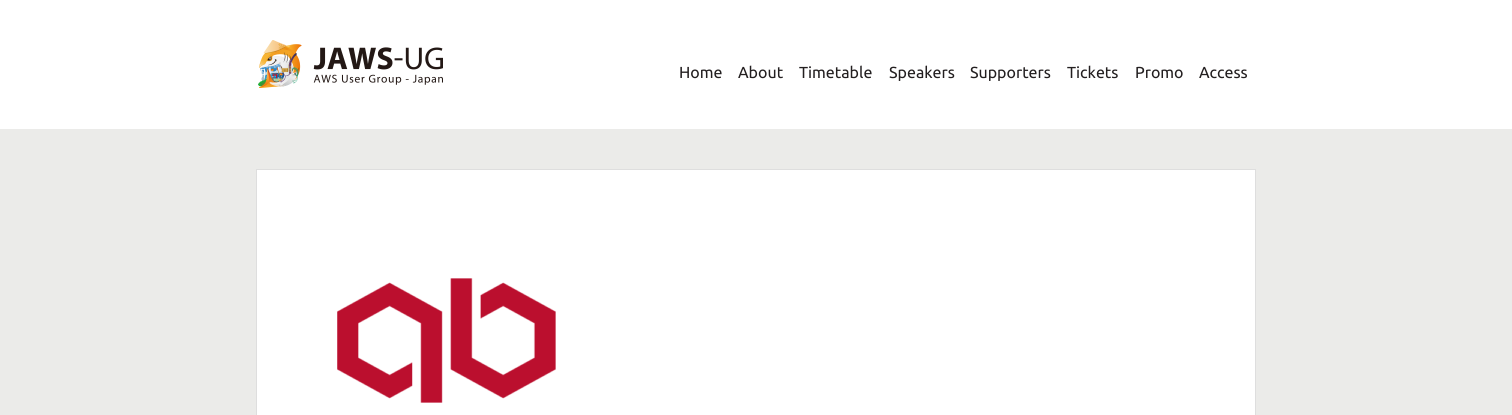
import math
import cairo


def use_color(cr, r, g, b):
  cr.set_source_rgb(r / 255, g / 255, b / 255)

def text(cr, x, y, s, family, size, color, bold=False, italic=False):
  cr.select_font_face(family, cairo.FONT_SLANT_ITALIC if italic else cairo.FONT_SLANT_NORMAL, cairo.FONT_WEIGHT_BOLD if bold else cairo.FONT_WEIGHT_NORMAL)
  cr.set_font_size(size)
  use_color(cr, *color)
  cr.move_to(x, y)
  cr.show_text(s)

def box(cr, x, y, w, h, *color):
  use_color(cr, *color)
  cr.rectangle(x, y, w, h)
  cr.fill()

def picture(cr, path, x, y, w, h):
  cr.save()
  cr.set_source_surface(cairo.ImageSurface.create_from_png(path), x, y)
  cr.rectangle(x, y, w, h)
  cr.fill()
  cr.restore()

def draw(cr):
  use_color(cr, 255, 255, 255)
  cr.paint()
  picture(cr, "img_01.png", 258, 40, 185, 48)
  box(cr, 0, 129, 1512, 286, 235, 235, 233)
  use_color(cr, 255, 255, 255)
  cr.rectangle(256.5, 169.5, 999, 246)
  cr.fill_preserve()
  use_color(cr, 222, 222, 222)
  cr.set_line_width(1)
  cr.stroke()
  picture(cr, "img_02.png", 337, 278, 219, 125)
  text(cr, 679, 78, "Home", "Ubuntu", 16, (35, 31, 32))
  text(cr, 738, 78, "About", "Ubuntu", 16, (35, 31, 32))
  text(cr, 799, 78, "Timetable", "Ubuntu", 16, (35, 31, 32))
  text(cr, 889, 78, "Speakers", "Ubuntu", 16, (35, 31, 32))
  text(cr, 970, 78, "Supporters", "Ubuntu", 16, (35, 31, 32))
  text(cr, 1067, 78, "Tickets", "Ubuntu", 16, (35, 31, 32))
  text(cr, 1135, 78, "Promo", "Ubuntu", 16, (35, 31, 32))
  text(cr, 1199, 78, "Access", "Ubuntu", 16, (35, 31, 32))


surface = cairo.ImageSurface(cairo.FORMAT_RGB24, 1512, 415)
cr = cairo.Context(surface)
options = cairo.FontOptions()
options.set_hint_metrics(cairo.HINT_METRICS_OFF)
options.set_hint_style(cairo.HINT_STYLE_NONE)
cr.set_font_options(options)
cr.set_miter_limit(4)
draw(cr)
surface.write_to_png("out.png")
